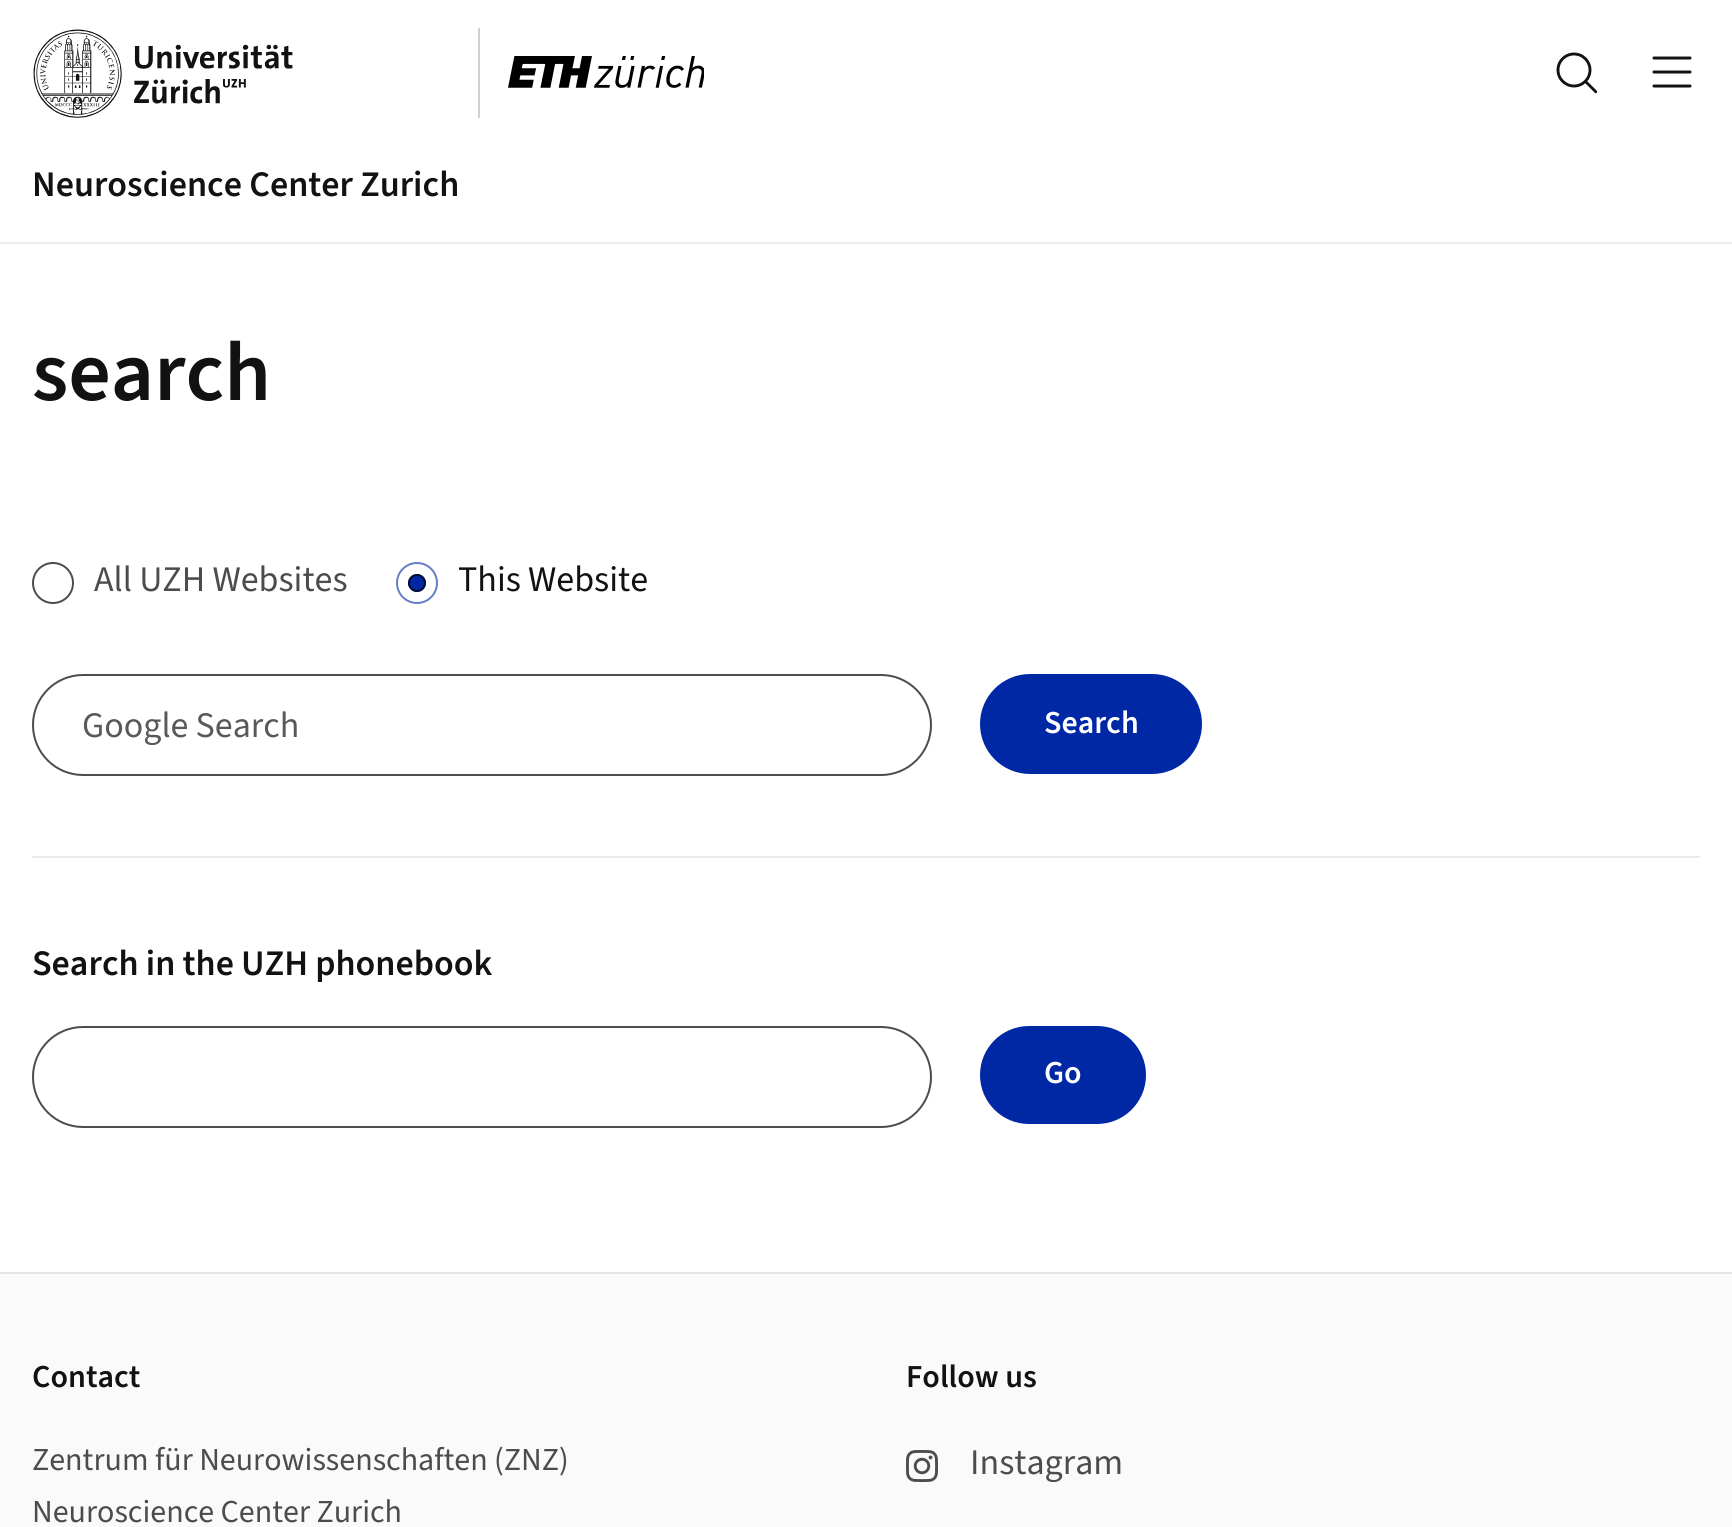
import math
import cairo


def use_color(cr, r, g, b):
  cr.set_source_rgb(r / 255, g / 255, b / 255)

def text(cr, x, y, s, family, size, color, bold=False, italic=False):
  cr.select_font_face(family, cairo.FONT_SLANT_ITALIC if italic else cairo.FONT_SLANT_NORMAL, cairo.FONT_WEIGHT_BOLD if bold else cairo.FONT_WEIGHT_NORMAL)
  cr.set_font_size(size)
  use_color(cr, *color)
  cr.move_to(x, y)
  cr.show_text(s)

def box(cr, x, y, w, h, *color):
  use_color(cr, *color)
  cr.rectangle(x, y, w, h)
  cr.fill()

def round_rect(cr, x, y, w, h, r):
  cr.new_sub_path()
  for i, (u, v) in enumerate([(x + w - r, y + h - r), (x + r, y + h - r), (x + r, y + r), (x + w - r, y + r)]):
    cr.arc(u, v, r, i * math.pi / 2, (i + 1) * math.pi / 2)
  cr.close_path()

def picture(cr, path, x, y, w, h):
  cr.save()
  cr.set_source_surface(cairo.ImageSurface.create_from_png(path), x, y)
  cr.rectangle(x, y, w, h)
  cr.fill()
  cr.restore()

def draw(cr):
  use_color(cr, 255, 255, 255)
  cr.paint()
  box(cr, 0, 242, 1732, 2, 236, 236, 236)
  picture(cr, "img_01.png", 33, 29, 260, 89)
  box(cr, 478, 28, 2, 90, 208, 208, 208)
  picture(cr, "img_02.png", 508, 56, 196, 32)
  cr.arc(1574, 70, 16, 0, 2 * math.pi)
  use_color(cr, 18, 18, 18)
  cr.set_line_width(2.9)
  cr.stroke()
  cr.new_path()
  cr.move_to(1586.5, 80.5)
  cr.curve_to(1585.5, 79, 1583, 81.5, 1584.5, 82.5)
  cr.close_path()
  cr.move_to(1595, 93)
  cr.curve_to(1596, 94, 1598, 92, 1597, 91)
  cr.close_path()
  cr.move_to(1584.5, 82.5)
  cr.line_to(1595, 93)
  cr.line_to(1597, 91)
  cr.line_to(1586.5, 80.5)
  cr.close_path()
  cr.fill()
  cr.new_path()
  cr.move_to(1654, 58)
  cr.line_to(1690, 58)
  cr.move_to(1654, 72)
  cr.line_to(1690, 72)
  cr.move_to(1654, 86)
  cr.line_to(1690, 86)
  cr.set_line_width(3)
  cr.set_line_cap(cairo.LINE_CAP_ROUND)
  cr.set_line_join(cairo.LINE_JOIN_ROUND)
  cr.stroke()
  cr.arc(53, 583, 20, 0, 2 * math.pi)
  use_color(cr, 77, 77, 77)
  cr.set_line_width(2)
  cr.set_line_cap(cairo.LINE_CAP_BUTT)
  cr.set_line_join(cairo.LINE_JOIN_MITER)
  cr.stroke()
  cr.arc(417, 583, 20, 0, 2 * math.pi)
  use_color(cr, 102, 126, 201)
  cr.stroke()
  use_color(cr, 0, 40, 165)
  cr.arc(417, 583, 9, 0, 2 * math.pi)
  cr.fill()
  cr.arc(417, 583, 8, 0, 2 * math.pi)
  cr.set_source_rgba(0, 0, 0, 0.7)
  cr.stroke()
  round_rect(cr, 33, 675, 898, 100, 50)
  use_color(cr, 77, 77, 77)
  cr.stroke()
  use_color(cr, 0, 40, 165)
  round_rect(cr, 980, 674, 222, 100, 50)
  cr.fill()
  box(cr, 32, 856, 1668, 2, 235, 235, 235)
  round_rect(cr, 33, 1027, 898, 100, 50)
  use_color(cr, 77, 77, 77)
  cr.stroke()
  use_color(cr, 0, 40, 165)
  round_rect(cr, 980, 1026, 166, 98, 49)
  cr.fill()
  box(cr, 0, 1274, 1732, 253, 250, 250, 250)
  box(cr, 0, 1272, 1732, 2, 230, 230, 230)
  picture(cr, "img_03.png", 906, 1450, 32, 32)
  text(cr, 32, 196, "Neuroscience Center Zurich", "Source Sans 3 SemiBold", 36, (18, 18, 18))
  text(cr, 32, 400, "search", "Source Sans 3 SemiBold", 84, (18, 18, 18))
  text(cr, 94, 591, "All UZH Websites", "Source Sans 3", 36, (76, 76, 76))
  text(cr, 458, 591, "This Website", "Source Sans 3", 36, (18, 18, 18))
  text(cr, 82, 737, "Google Search", "Source Sans 3", 36, (89, 89, 89))
  text(cr, 1044, 733, "Search", "Source Sans 3 SemiBold", 32, (255, 255, 255))
  text(cr, 32, 975, "Search in the UZH phonebook", "Source Sans 3 SemiBold", 36, (18, 18, 18))
  text(cr, 1044, 1083, "Go", "Source Sans 3 SemiBold", 32, (255, 255, 255))
  text(cr, 32, 1387, "Contact", "Source Sans 3 SemiBold", 32, (18, 18, 18))
  text(cr, 32, 1470, "Zentrum für Neurowissenschaften (ZNZ)", "Source Sans 3", 32, (76, 76, 76))
  text(cr, 32, 1522, "Neuroscience Center Zurich", "Source Sans 3", 32, (76, 76, 76))
  text(cr, 906, 1387, "Follow us", "Source Sans 3 SemiBold", 32, (18, 18, 18))
  text(cr, 970, 1474, "Instagram", "Source Sans 3", 36, (76, 76, 76))


surface = cairo.ImageSurface(cairo.FORMAT_RGB24, 1732, 1527)
cr = cairo.Context(surface)
options = cairo.FontOptions()
options.set_hint_metrics(cairo.HINT_METRICS_OFF)
options.set_hint_style(cairo.HINT_STYLE_NONE)
cr.set_font_options(options)
cr.set_miter_limit(4)
draw(cr)
surface.write_to_png("out.png")
